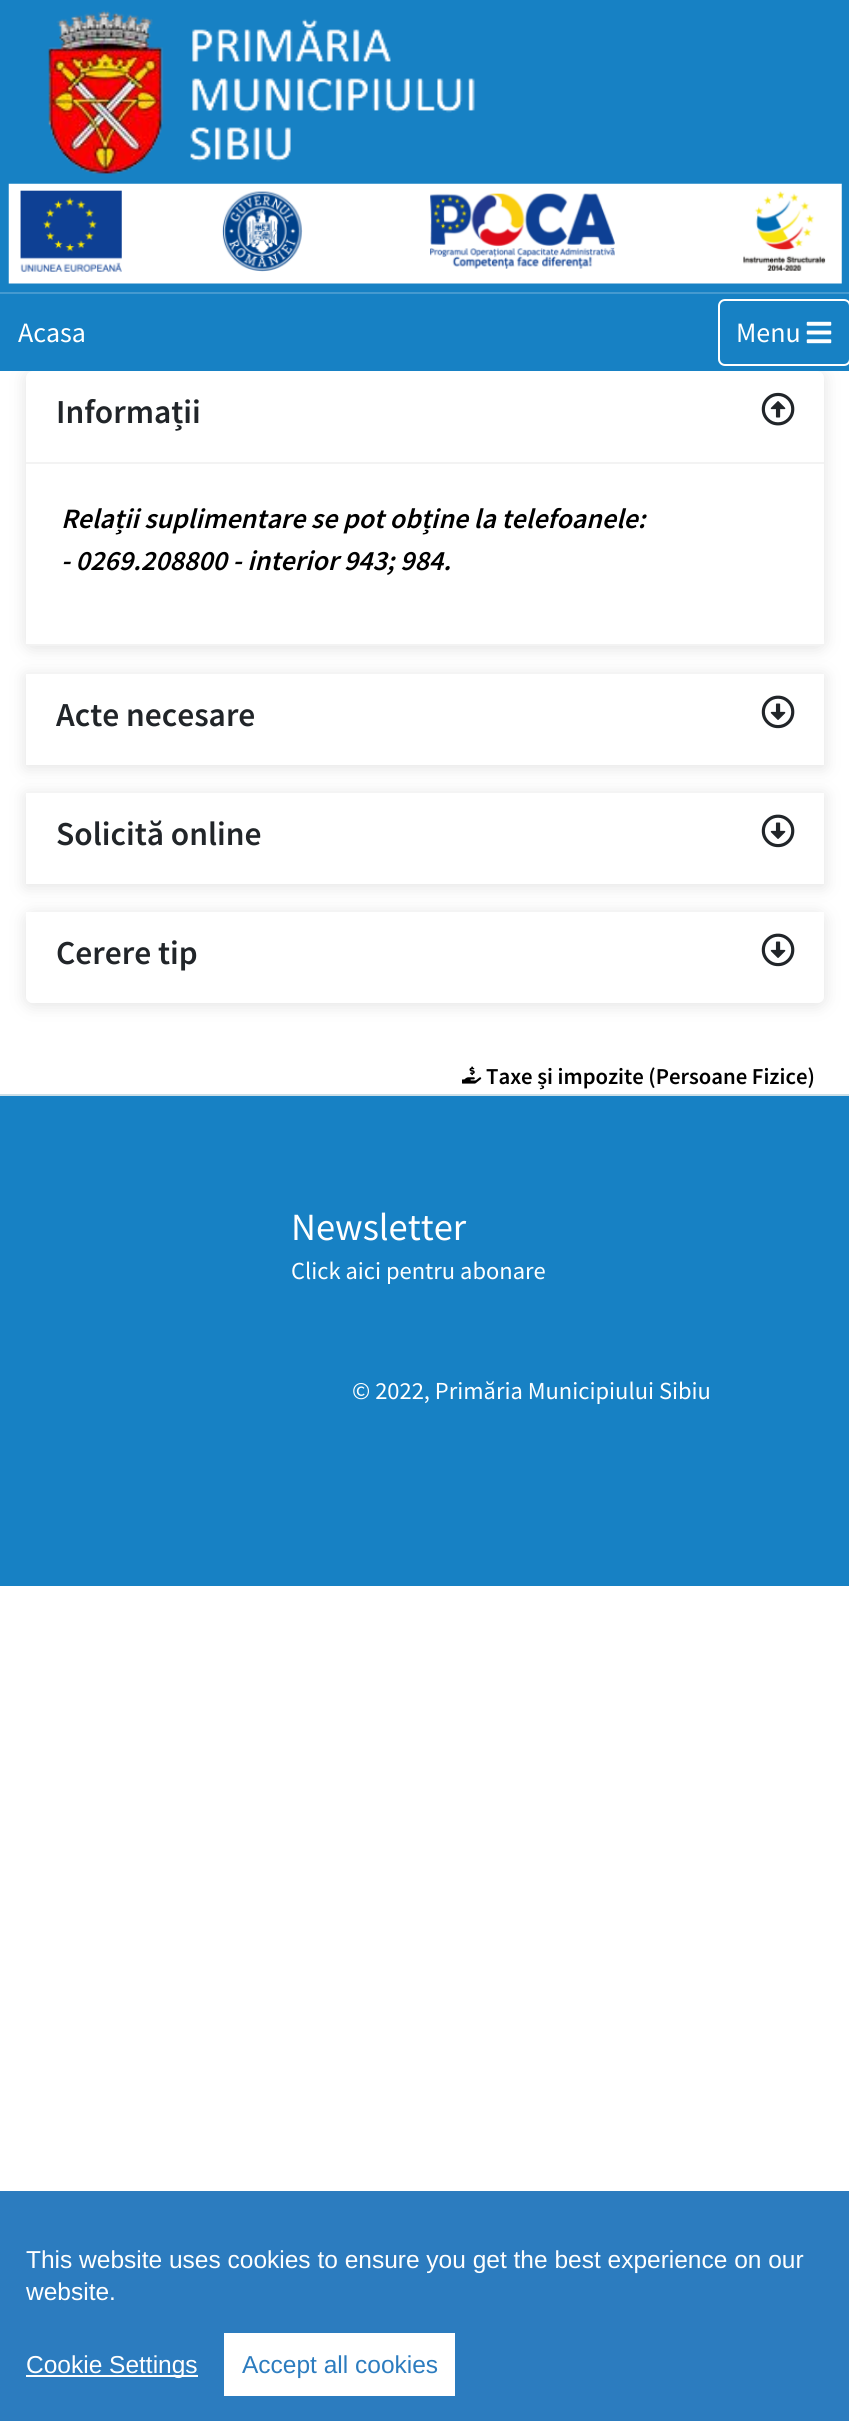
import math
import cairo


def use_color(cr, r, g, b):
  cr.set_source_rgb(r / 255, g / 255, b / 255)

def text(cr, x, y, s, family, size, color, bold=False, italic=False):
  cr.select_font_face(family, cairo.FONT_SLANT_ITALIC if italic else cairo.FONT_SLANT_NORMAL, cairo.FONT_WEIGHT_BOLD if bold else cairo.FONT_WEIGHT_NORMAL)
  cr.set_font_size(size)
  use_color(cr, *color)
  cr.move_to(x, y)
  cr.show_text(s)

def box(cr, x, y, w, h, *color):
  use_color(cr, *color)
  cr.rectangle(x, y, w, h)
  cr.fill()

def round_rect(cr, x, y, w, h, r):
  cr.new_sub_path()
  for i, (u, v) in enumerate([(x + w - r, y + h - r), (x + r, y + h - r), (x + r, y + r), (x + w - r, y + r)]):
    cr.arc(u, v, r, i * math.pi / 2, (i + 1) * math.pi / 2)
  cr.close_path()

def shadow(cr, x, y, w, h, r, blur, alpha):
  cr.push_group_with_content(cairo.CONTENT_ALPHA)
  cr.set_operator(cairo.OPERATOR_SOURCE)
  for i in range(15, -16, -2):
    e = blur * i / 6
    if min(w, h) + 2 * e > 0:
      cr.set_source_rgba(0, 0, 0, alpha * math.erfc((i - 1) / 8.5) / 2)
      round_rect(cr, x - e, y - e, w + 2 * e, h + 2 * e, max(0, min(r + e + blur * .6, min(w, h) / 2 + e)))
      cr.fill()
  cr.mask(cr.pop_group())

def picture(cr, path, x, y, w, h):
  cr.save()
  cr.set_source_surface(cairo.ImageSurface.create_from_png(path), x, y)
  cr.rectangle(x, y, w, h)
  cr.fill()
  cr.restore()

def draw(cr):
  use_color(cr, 255, 255, 255)
  cr.paint()
  box(cr, 0, 0, 849, 292, 23, 129, 196)
  picture(cr, "img_01.png", 48, 10, 427, 165)
  picture(cr, "img_02.png", 8, 183, 834, 101)
  use_color(cr, 222, 222, 222)
  shadow(cr, 26, 373, 798, 275, 7, 8, 0.9)
  box(cr, 0, 294, 849, 77, 23, 129, 196)
  box(cr, 0, 292, 849, 2, 69, 154, 208)
  round_rect(cr, 719, 300, 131, 65, 6)
  use_color(cr, 255, 255, 255)
  cr.stroke()
  picture(cr, "img_03.png", 806, 321, 26, 23)
  cr.new_path()
  cr.move_to(33, 371)
  cr.line_to(817, 371)
  cr.curve_to(821, 371, 824, 374, 824, 378)
  cr.line_to(824, 646)
  cr.line_to(26, 646)
  cr.line_to(26, 378)
  cr.curve_to(26, 374, 29, 371, 33, 371)
  cr.close_path()
  cr.fill()
  box(cr, 26, 462, 798, 2, 243, 243, 243)
  picture(cr, "img_04.png", 761, 392, 34, 34)
  box(cr, 26, 644, 798, 2, 243, 243, 243)
  use_color(cr, 222, 222, 222)
  shadow(cr, 26, 676, 798, 91, 0, 8, 0.9)
  box(cr, 26, 674, 798, 91, 255, 255, 255)
  picture(cr, "img_05.png", 761, 695, 34, 34)
  use_color(cr, 222, 222, 222)
  shadow(cr, 26, 795, 798, 91, 0, 8, 0.9)
  box(cr, 26, 793, 798, 91, 255, 255, 255)
  picture(cr, "img_05.png", 761, 814, 34, 34)
  use_color(cr, 222, 222, 222)
  shadow(cr, 26, 914, 798, 91, 7, 8, 0.9)
  use_color(cr, 255, 255, 255)
  cr.new_path()
  cr.move_to(26, 912)
  cr.line_to(824, 912)
  cr.line_to(824, 996)
  cr.curve_to(824, 1000, 821, 1003, 817, 1003)
  cr.line_to(33, 1003)
  cr.curve_to(29, 1003, 26, 1000, 26, 996)
  cr.close_path()
  cr.fill()
  cr.new_path()
  cr.move_to(26, 921)
  cr.line_to(824, 921)
  cr.line_to(824, 996)
  cr.curve_to(824, 1000, 821, 1003, 817, 1003)
  cr.line_to(33, 1003)
  cr.curve_to(29, 1003, 26, 1000, 26, 996)
  cr.close_path()
  cr.fill()
  picture(cr, "img_05.png", 761, 933, 34, 34)
  picture(cr, "img_06.png", 462, 1066, 20, 18)
  box(cr, 0, 1096, 849, 490, 23, 129, 196)
  box(cr, 0, 1094, 849, 2, 203, 223, 232)
  box(cr, 0, 2191, 849, 230, 44, 124, 191)
  box(cr, 26, 2375, 172, 2, 255, 255, 255)
  box(cr, 224, 2333, 231, 63, 255, 255, 255)
  text(cr, 18, 342, "Acasa", "Source Sans Pro", 28, (255, 255, 255))
  text(cr, 736, 342, "Menu", "Source Sans Pro", 28, (255, 255, 255))
  text(cr, 56, 423, "Informații", "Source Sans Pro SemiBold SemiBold", 33.5, (33, 37, 41))
  text(cr, 61, 528, "Relații suplimentare se pot obține la telefoanele:", "Source Sans Pro SemiBold SemiBold", 28, (0, 0, 0), italic=True)
  text(cr, 61, 570, "- 0269.208800 - interior 943; 984.", "Source Sans Pro SemiBold SemiBold", 28, (0, 0, 0), italic=True)
  text(cr, 56, 726, "Acte necesare", "Source Sans Pro SemiBold SemiBold", 33.5, (33, 37, 41))
  text(cr, 56, 845, "Solicită online", "Source Sans Pro SemiBold SemiBold", 33.5, (33, 37, 41))
  text(cr, 56, 964, "Cerere tip", "Source Sans Pro SemiBold SemiBold", 33.5, (33, 37, 41))
  text(cr, 486, 1084, "Taxe și impozite (Persoane Fizice)", "Source Sans Pro SemiBold SemiBold", 22.75, (0, 0, 0))
  text(cr, 291, 1240, "Newsletter", "Source Sans Pro", 38.5, (255, 255, 255))
  text(cr, 291, 1279, "Click aici pentru abonare", "Source Sans Pro", 24.5, (255, 255, 255))
  text(cr, 352, 1399, "© 2022, Primăria Municipiului Sibiu", "Source Sans Pro", 24.5, (255, 255, 255))
  text(cr, 26, 2268, "This website uses cookies to ensure you get the best experience on our", "Liberation Sans", 24.5, (255, 255, 255))
  text(cr, 26, 2300, "website.", "Liberation Sans", 24.5, (255, 255, 255))
  text(cr, 26, 2373, "Cookie Settings", "Liberation Sans", 24.5, (255, 255, 255))
  text(cr, 242, 2373, "Accept all cookies", "Liberation Sans", 24.5, (44, 124, 191))


surface = cairo.ImageSurface(cairo.FORMAT_RGB24, 849, 2421)
cr = cairo.Context(surface)
options = cairo.FontOptions()
options.set_hint_metrics(cairo.HINT_METRICS_OFF)
options.set_hint_style(cairo.HINT_STYLE_NONE)
cr.set_font_options(options)
cr.set_miter_limit(4)
draw(cr)
surface.write_to_png("out.png")
